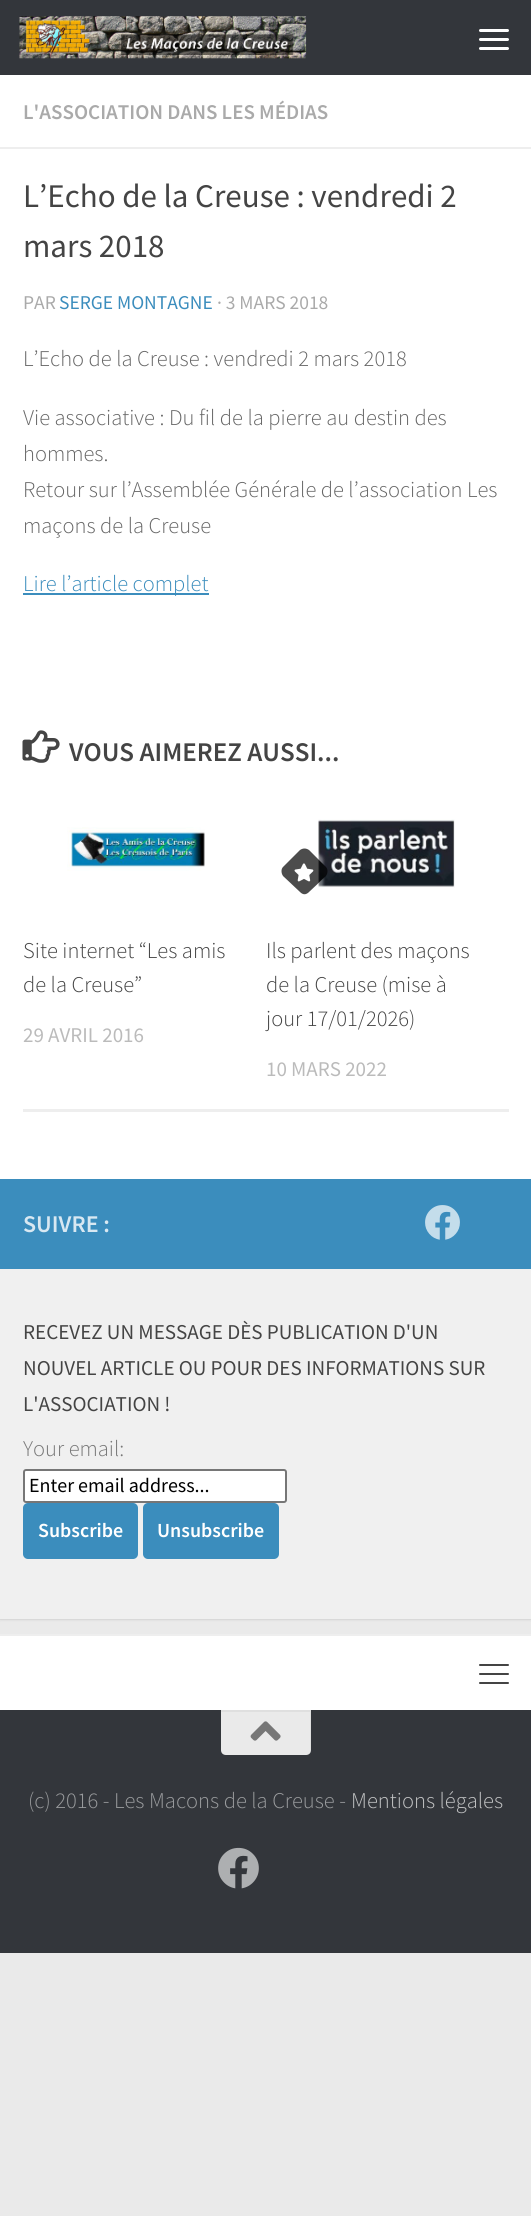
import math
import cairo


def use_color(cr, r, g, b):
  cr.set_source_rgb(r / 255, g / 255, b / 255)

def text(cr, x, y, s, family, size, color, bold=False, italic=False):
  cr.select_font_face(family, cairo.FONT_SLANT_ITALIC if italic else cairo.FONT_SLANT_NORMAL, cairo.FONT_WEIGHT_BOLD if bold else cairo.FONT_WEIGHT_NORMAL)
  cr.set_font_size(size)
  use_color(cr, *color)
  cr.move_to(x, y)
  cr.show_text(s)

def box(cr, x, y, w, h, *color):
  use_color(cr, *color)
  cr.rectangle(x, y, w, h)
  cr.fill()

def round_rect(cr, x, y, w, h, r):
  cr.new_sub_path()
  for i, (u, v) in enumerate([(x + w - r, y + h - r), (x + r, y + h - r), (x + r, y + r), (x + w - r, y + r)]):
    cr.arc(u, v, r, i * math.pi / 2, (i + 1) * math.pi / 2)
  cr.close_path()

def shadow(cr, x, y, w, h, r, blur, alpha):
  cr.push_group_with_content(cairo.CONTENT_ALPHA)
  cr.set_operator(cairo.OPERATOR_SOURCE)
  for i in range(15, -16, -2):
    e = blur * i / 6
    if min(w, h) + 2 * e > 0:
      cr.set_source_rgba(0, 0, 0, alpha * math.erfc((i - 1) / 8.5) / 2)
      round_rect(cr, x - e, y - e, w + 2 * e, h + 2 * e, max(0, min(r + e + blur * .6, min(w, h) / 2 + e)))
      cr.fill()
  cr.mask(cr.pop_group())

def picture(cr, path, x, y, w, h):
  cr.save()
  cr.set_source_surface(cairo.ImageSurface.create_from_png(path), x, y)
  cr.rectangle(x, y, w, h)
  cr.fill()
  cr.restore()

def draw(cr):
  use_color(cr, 234, 234, 234)
  cr.paint()
  use_color(cr, 0, 0, 0)
  shadow(cr, 0, 77, 531, 1543, 0, 1, 0.1)
  box(cr, 0, 0, 531, 75, 51, 54, 59)
  picture(cr, "img_01.png", 19, 16, 288, 43)
  use_color(cr, 255, 255, 255)
  round_rect(cr, 479, 29, 30, 3, 1.5)
  cr.fill()
  round_rect(cr, 479, 38, 30, 3, 1.5)
  cr.fill()
  round_rect(cr, 479, 47, 30, 3, 1.5)
  cr.fill()
  box(cr, 0, 75, 531, 1104, 255, 255, 255)
  box(cr, 0, 147, 531, 2, 238, 238, 238)
  box(cr, 23, 593, 186, 2, 59, 141, 189)
  picture(cr, "img_02.png", 22, 730, 38, 33)
  box(cr, 23, 1109, 486, 3, 238, 238, 238)
  picture(cr, "img_03.png", 67, 827, 138, 44)
  picture(cr, "img_05.png", 318, 819, 137, 69)
  cr.save()
  cr.set_fill_rule(cairo.FILL_RULE_EVEN_ODD)
  cr.new_path()
  cr.move_to(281, 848)
  cr.line_to(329, 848)
  cr.line_to(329, 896)
  cr.line_to(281, 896)
  cr.close_path()
  cr.move_to(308.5, 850)
  cr.line_to(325.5, 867)
  cr.curve_to(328, 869.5, 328, 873, 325.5, 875.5)
  cr.line_to(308.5, 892.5)
  cr.curve_to(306.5, 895, 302.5, 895, 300.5, 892.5)
  cr.line_to(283.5, 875.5)
  cr.curve_to(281, 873, 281, 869.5, 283.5, 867)
  cr.line_to(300.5, 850)
  cr.curve_to(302.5, 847.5, 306.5, 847.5, 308.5, 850)
  cr.close_path()
  cr.clip()
  use_color(cr, 255, 255, 255)
  shadow(cr, 287, 854, 36, 36, 6, 1.5, 0.4)
  cr.restore()
  cr.set_source_rgba(0, 0, 0, 0.7)
  cr.new_path()
  cr.move_to(309, 850)
  cr.line_to(326, 867)
  cr.curve_to(328, 869, 328, 873, 326, 876)
  cr.line_to(309, 892)
  cr.curve_to(306, 895, 303, 895, 300, 892)
  cr.line_to(283, 876)
  cr.curve_to(281, 873, 281, 869, 283, 867)
  cr.line_to(300, 850)
  cr.curve_to(303, 848, 306, 848, 309, 850)
  cr.close_path()
  cr.fill()
  picture(cr, "img_04.png", 294, 863, 20, 19)
  box(cr, 0, 1269, 531, 350, 240, 240, 240)
  box(cr, 0, 1179, 531, 90, 59, 141, 189)
  picture(cr, "img_06.png", 425, 1205, 35, 35)
  use_color(cr, 255, 255, 255)
  round_rect(cr, 24, 1470, 262, 32, 2)
  cr.fill_preserve()
  use_color(cr, 118, 118, 118)
  cr.stroke()
  use_color(cr, 59, 141, 189)
  round_rect(cr, 23, 1503, 115, 56, 5)
  cr.fill()
  round_rect(cr, 143, 1503, 136, 56, 5)
  cr.fill()
  box(cr, 0, 1636, 531, 74, 255, 255, 255)
  box(cr, 0, 1634, 531, 2, 238, 238, 238)
  use_color(cr, 68, 68, 68)
  round_rect(cr, 479, 1664, 30, 2, 1)
  cr.fill()
  round_rect(cr, 479, 1673, 30, 2, 1)
  cr.fill()
  round_rect(cr, 479, 1682, 30, 2, 1)
  cr.fill()
  box(cr, 0, 1710, 531, 243, 51, 54, 59)
  use_color(cr, 234, 234, 234)
  cr.new_path()
  cr.move_to(221, 1710)
  cr.line_to(311, 1710)
  cr.line_to(311, 1750)
  cr.curve_to(311, 1753, 309, 1755, 306, 1755)
  cr.line_to(226, 1755)
  cr.curve_to(223, 1755, 221, 1753, 221, 1750)
  cr.close_path()
  cr.fill()
  cr.set_source_rgba(0, 0, 0, 0.05)
  cr.new_path()
  cr.move_to(221, 1710)
  cr.line_to(221, 1712)
  cr.line_to(310, 1712)
  cr.line_to(310, 1753)
  cr.curve_to(311, 1752, 311, 1751, 311, 1750)
  cr.line_to(311, 1710)
  cr.close_path()
  cr.fill()
  picture(cr, "img_07.png", 250, 1721, 31, 20)
  picture(cr, "img_08.png", 218, 1847, 41, 42)
  text(cr, 23, 119, "L'ASSOCIATION DANS LES MÉDIAS", "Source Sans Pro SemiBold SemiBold", 21, (170, 170, 170))
  text(cr, 23, 207, "L’Echo de la Creuse : vendredi 2", "Source Sans Pro", 33, (68, 68, 68))
  text(cr, 23, 257, "mars 2018", "Source Sans Pro", 33, (68, 68, 68))
  text(cr, 23, 309, "PAR", "Source Sans Pro", 19.5, (170, 170, 170))
  text(cr, 59, 309, "SERGE MONTAGNE", "Source Sans Pro", 19.5, (59, 141, 189))
  text(cr, 217, 309, "· 3 MARS 2018", "Source Sans Pro", 19.5, (170, 170, 170))
  text(cr, 23, 366, "L’Echo de la Creuse : vendredi 2 mars 2018", "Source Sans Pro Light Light", 22.5, (102, 102, 102))
  text(cr, 23, 425, "Vie associative : Du fil de la pierre au destin des", "Source Sans Pro Light Light", 22.5, (102, 102, 102))
  text(cr, 23, 461, "hommes.", "Source Sans Pro Light Light", 22.5, (102, 102, 102))
  text(cr, 23, 497, "Retour sur l’Assemblée Générale de l’association Les", "Source Sans Pro Light Light", 22.5, (102, 102, 102))
  text(cr, 23, 533, "maçons de la Creuse", "Source Sans Pro Light Light", 22.5, (102, 102, 102))
  text(cr, 23, 591, "Lire l’article complet", "Source Sans Pro Light Light", 22.5, (59, 141, 189))
  text(cr, 69, 761, "VOUS AIMEREZ AUSSI...", "Source Sans Pro SemiBold SemiBold", 27, (68, 68, 68))
  text(cr, 23, 958, "Site internet “Les amis", "Source Sans Pro Light Light", 22.5, (68, 68, 68))
  text(cr, 23, 992, "de la Creuse”", "Source Sans Pro Light Light", 22.5, (68, 68, 68))
  text(cr, 23, 1042, "29 AVRIL 2016", "Source Sans Pro", 21, (187, 187, 187))
  text(cr, 266, 958, "Ils parlent des maçons", "Source Sans Pro Light Light", 22.5, (68, 68, 68))
  text(cr, 266, 992, "de la Creuse (mise à", "Source Sans Pro Light Light", 22.5, (68, 68, 68))
  text(cr, 266, 1026, "jour 17/01/2026)", "Source Sans Pro Light Light", 22.5, (68, 68, 68))
  text(cr, 266, 1076, "10 MARS 2022", "Source Sans Pro", 21, (187, 187, 187))
  text(cr, 23, 1232, "SUIVRE :", "Source Sans Pro SemiBold SemiBold", 24, (216, 232, 242))
  text(cr, 23, 1339, "RECEVEZ UN MESSAGE DÈS PUBLICATION D'UN", "Source Sans Pro", 21.1, (68, 68, 68))
  text(cr, 23, 1375, "NOUVEL ARTICLE OU POUR DES INFORMATIONS SUR", "Source Sans Pro", 21.1, (68, 68, 68))
  text(cr, 23, 1411, "L'ASSOCIATION !", "Source Sans Pro", 21.1, (68, 68, 68))
  text(cr, 23, 1456, "Your email:", "Source Sans Pro Light Light", 22.5, (119, 119, 119))
  text(cr, 29, 1492, "Enter email address...", "Source Sans Pro", 20, (0, 0, 0))
  text(cr, 38, 1537, "Subscribe", "Source Sans Pro SemiBold SemiBold", 20, (255, 255, 255))
  text(cr, 157, 1537, "Unsubscribe", "Source Sans Pro SemiBold SemiBold", 20, (255, 255, 255))
  text(cr, 28, 1808, "(c) 2016 - Les Macons de la Creuse -", "Source Sans Pro Light Light", 22.5, (153, 155, 157))
  text(cr, 351, 1808, "Mentions légales", "Source Sans Pro Light Light", 22.5, (194, 195, 196))


surface = cairo.ImageSurface(cairo.FORMAT_RGB24, 531, 2216)
cr = cairo.Context(surface)
options = cairo.FontOptions()
options.set_hint_metrics(cairo.HINT_METRICS_OFF)
options.set_hint_style(cairo.HINT_STYLE_NONE)
cr.set_font_options(options)
cr.set_miter_limit(4)
draw(cr)
surface.write_to_png("out.png")
